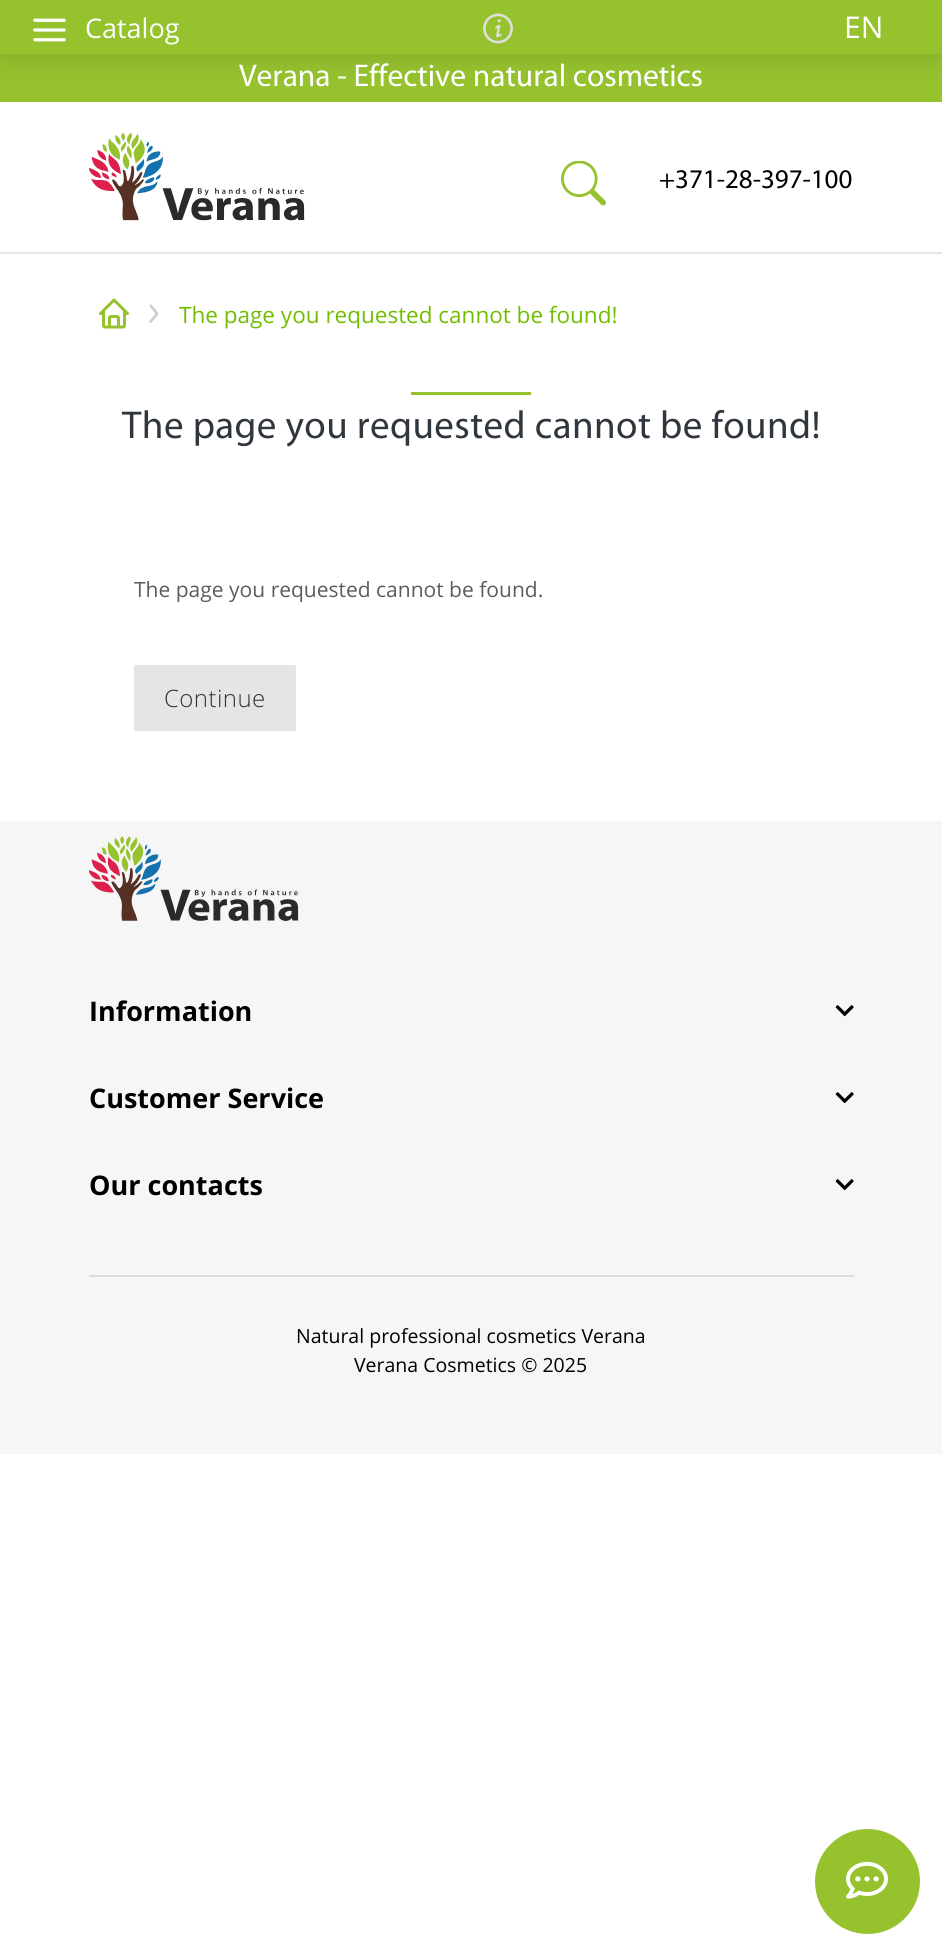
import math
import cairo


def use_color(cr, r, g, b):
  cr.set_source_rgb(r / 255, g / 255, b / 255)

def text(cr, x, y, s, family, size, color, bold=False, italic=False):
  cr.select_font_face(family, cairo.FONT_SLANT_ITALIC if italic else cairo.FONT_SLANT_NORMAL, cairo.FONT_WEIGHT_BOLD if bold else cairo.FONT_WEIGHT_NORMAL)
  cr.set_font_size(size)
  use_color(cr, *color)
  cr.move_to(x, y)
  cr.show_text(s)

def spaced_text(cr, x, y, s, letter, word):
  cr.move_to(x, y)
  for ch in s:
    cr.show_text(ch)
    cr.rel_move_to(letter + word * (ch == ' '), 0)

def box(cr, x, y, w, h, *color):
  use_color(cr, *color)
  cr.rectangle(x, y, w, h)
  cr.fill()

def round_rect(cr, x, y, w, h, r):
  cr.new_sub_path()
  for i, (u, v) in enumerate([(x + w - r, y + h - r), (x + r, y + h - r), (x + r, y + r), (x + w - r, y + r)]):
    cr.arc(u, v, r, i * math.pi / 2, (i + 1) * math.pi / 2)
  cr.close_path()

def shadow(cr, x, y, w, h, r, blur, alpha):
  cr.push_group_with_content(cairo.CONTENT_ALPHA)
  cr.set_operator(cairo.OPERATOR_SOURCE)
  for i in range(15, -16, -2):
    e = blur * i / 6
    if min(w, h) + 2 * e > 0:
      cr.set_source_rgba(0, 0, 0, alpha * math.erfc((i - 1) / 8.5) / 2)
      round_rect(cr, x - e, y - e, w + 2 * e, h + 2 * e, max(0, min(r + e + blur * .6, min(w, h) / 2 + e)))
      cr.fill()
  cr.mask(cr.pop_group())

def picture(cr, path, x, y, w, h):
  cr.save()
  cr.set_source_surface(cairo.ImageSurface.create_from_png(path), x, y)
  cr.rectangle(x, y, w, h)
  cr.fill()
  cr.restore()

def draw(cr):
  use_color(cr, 255, 255, 255)
  cr.paint()
  box(cr, 0, 54, 942, 48, 150, 194, 46)
  use_color(cr, 0, 0, 0)
  shadow(cr, 0, 6, 942, 54, 0, 11, 0.1)
  box(cr, 0, 0, 942, 54, 150, 194, 46)
  picture(cr, "img_01.png", 33, 18, 33, 24)
  picture(cr, "img_02.png", 483, 13, 30, 31)
  box(cr, 0, 252, 942, 2, 230, 230, 230)
  picture(cr, "img_03.png", 89, 132, 216, 89)
  picture(cr, "img_04.png", 561, 161, 45, 45)
  picture(cr, "img_05.png", 99, 298, 30, 31)
  picture(cr, "img_06.png", 149, 304, 10, 19)
  box(cr, 411, 392, 120, 3, 150, 194, 46)
  use_color(cr, 229, 229, 229)
  round_rect(cr, 134, 665, 162, 66, 1.5)
  cr.fill()
  box(cr, 0, 821, 942, 633, 246, 246, 246)
  picture(cr, "img_07.png", 89, 836, 210, 85)
  picture(cr, "img_08.png", 835, 1005, 19, 12)
  picture(cr, "img_08.png", 835, 1092, 19, 12)
  picture(cr, "img_08.png", 835, 1179, 19, 12)
  box(cr, 89, 1275, 765, 2, 221, 221, 221)
  use_color(cr, 150, 194, 46)
  cr.arc(867.5, 1881.5, 52.5, 0, 2 * math.pi)
  cr.fill()
  picture(cr, "img_09.png", 846, 1861, 42, 38)
  text(cr, 85, 38, "Catalog", "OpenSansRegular", 27, (255, 255, 255))
  text(cr, 844, 38, "EN", "OpenSansRegular", 30, (255, 255, 255))
  text(cr, 239, 86, "Verana - Effective natural cosmetics", "Myriad", 31.5, (255, 255, 255))
  text(cr, 659, 188, "+371-28-397-100", "Myriad", 27, (0, 0, 0))
  text(cr, 179, 323, "The page you requested cannot be found!", "OpenSansRegular", 22.5, (113, 190, 0))
  cr.select_font_face("Myriad")
  cr.set_font_size(39)
  use_color(cr, 48, 54, 61)
  spaced_text(cr, 122, 438, "The page you requested cannot be found!", 0.45, 0)
  text(cr, 134, 597, "The page you requested cannot be found.", "OpenSansRegular", 21, (92, 92, 92))
  cr.select_font_face("Open Sans Light")
  cr.set_font_size(24)
  use_color(cr, 51, 51, 51)
  spaced_text(cr, 164, 707, "Continue", 0.45, 0)
  text(cr, 89, 1021, "Information", "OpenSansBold", 27, (0, 0, 0), bold=True)
  text(cr, 89, 1108, "Customer Service", "OpenSansBold", 27, (0, 0, 0), bold=True)
  text(cr, 89, 1195, "Our contacts", "OpenSansBold", 27, (0, 0, 0), bold=True)
  text(cr, 296, 1343, "Natural professional cosmetics Verana", "OpenSansRegular", 19.5, (0, 0, 0))
  text(cr, 354, 1372, "Verana Cosmetics © 2025", "OpenSansRegular", 19.5, (0, 0, 0))


surface = cairo.ImageSurface(cairo.FORMAT_RGB24, 942, 1955)
cr = cairo.Context(surface)
options = cairo.FontOptions()
options.set_hint_metrics(cairo.HINT_METRICS_OFF)
options.set_hint_style(cairo.HINT_STYLE_NONE)
cr.set_font_options(options)
cr.set_miter_limit(4)
draw(cr)
surface.write_to_png("out.png")
